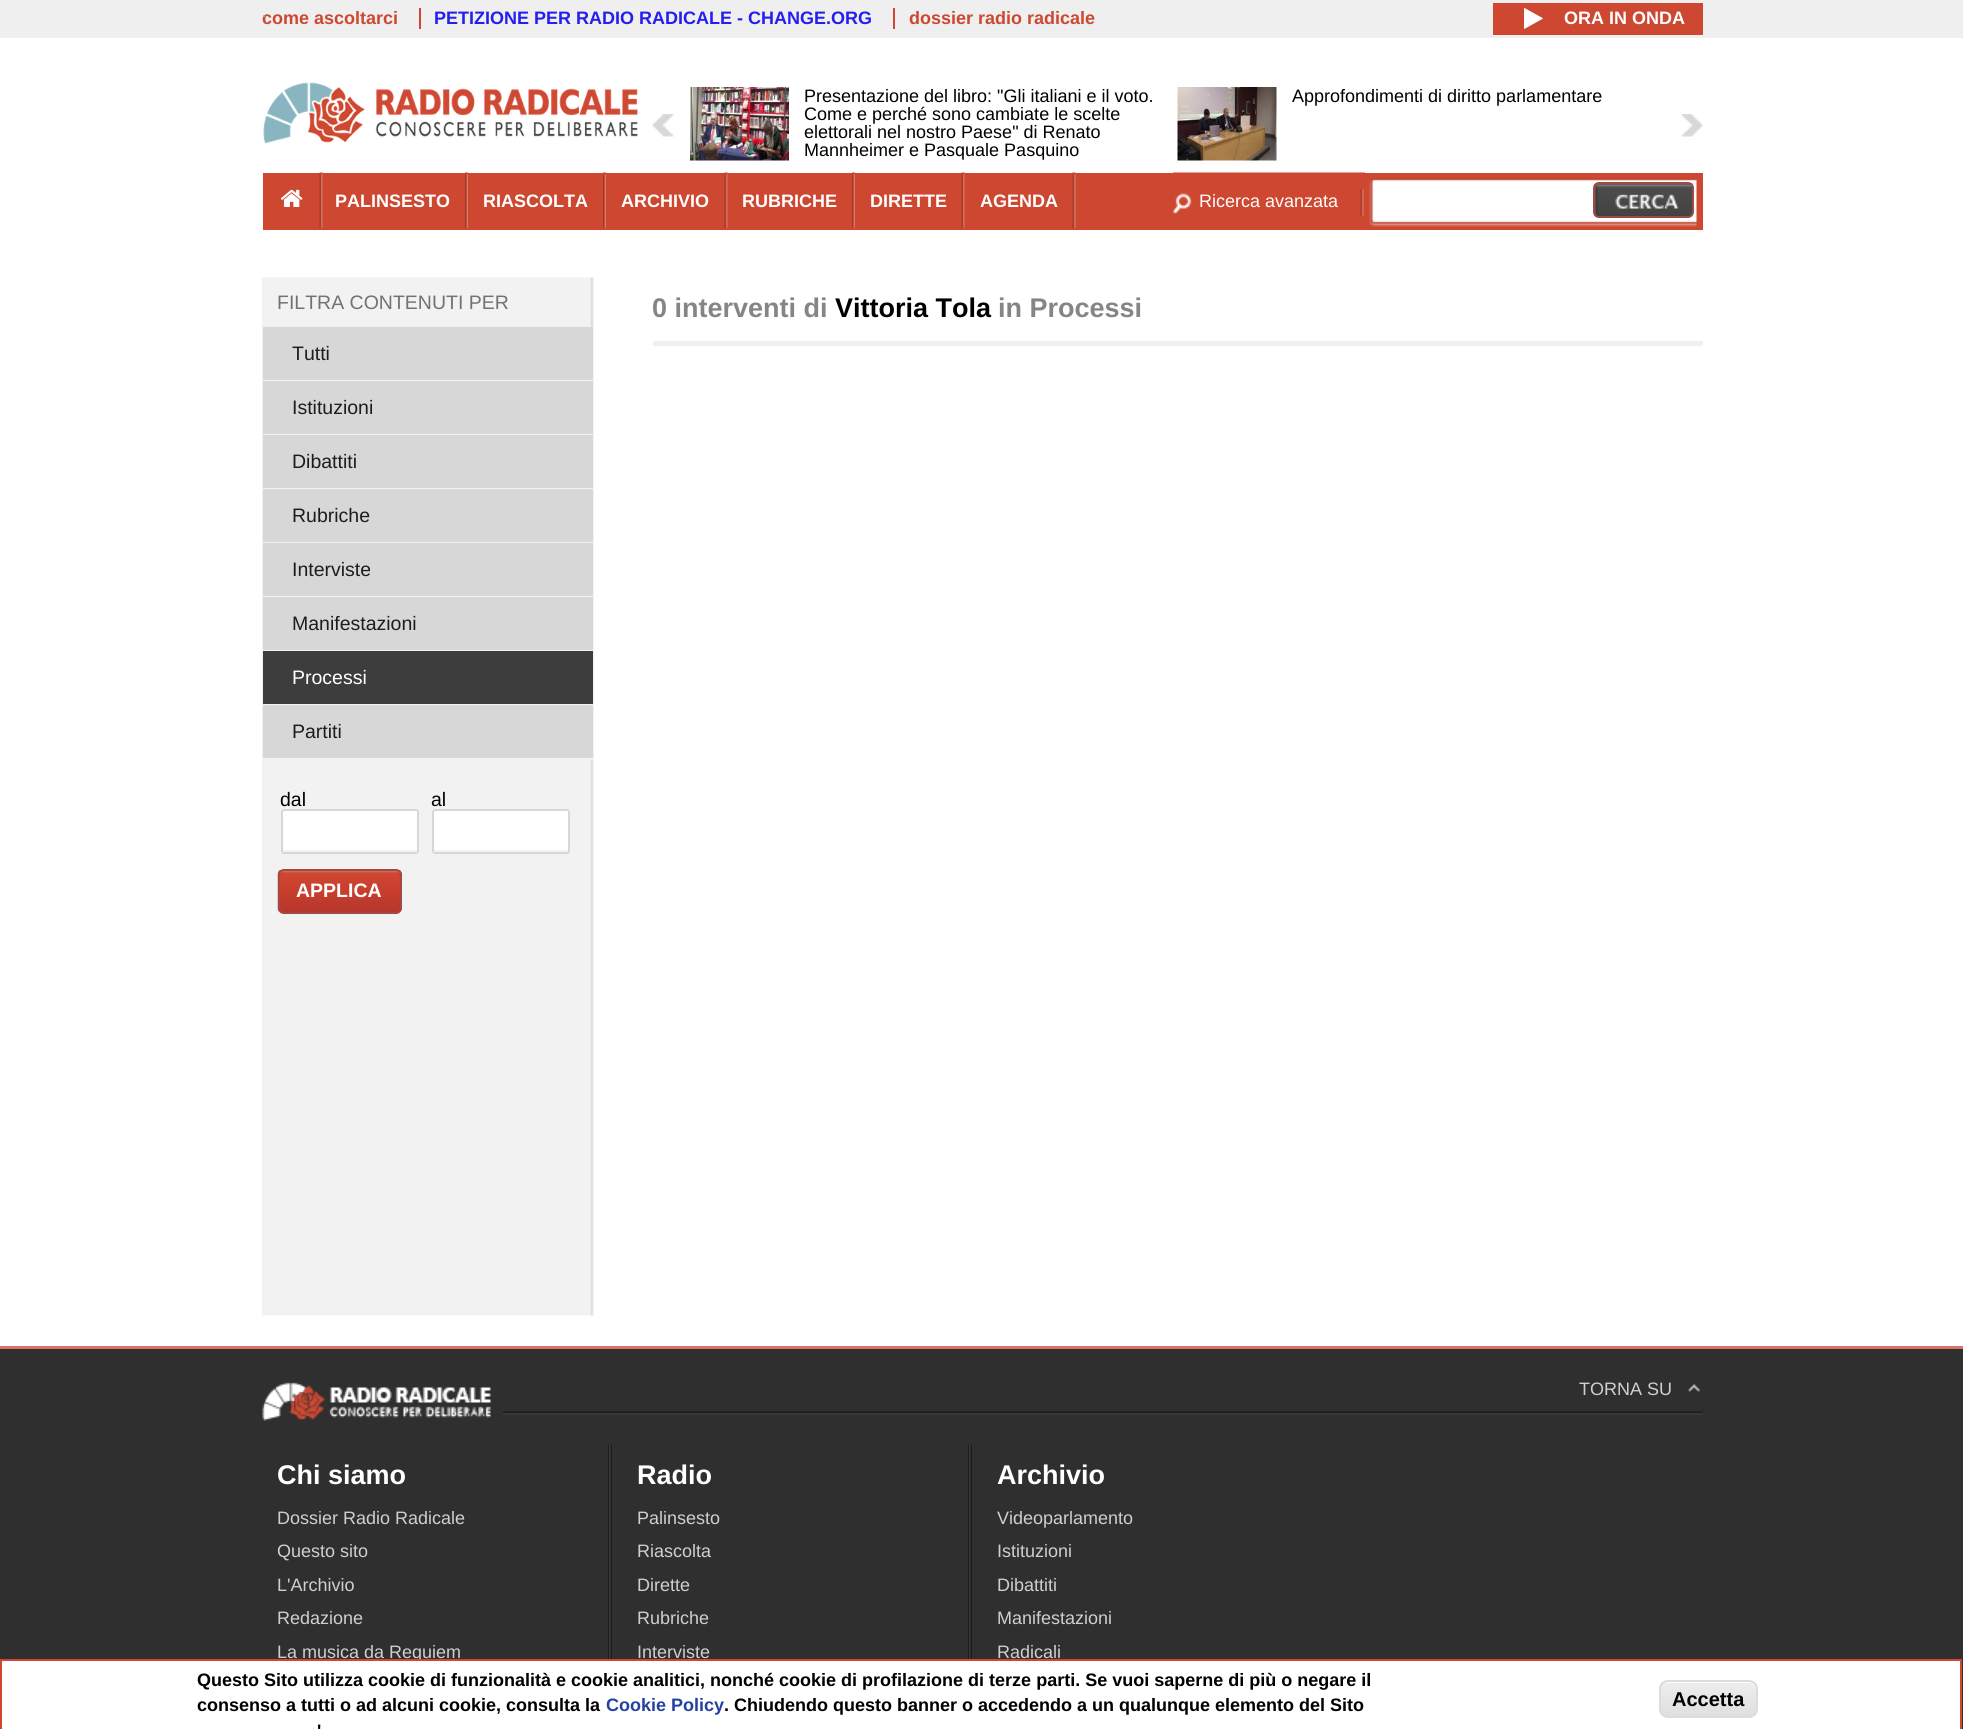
import math
import cairo


def use_color(cr, r, g, b):
  cr.set_source_rgb(r / 255, g / 255, b / 255)

def text(cr, x, y, s, family, size, color, bold=False, italic=False):
  cr.select_font_face(family, cairo.FONT_SLANT_ITALIC if italic else cairo.FONT_SLANT_NORMAL, cairo.FONT_WEIGHT_BOLD if bold else cairo.FONT_WEIGHT_NORMAL)
  cr.set_font_size(size)
  use_color(cr, *color)
  cr.move_to(x, y)
  cr.show_text(s)

def box(cr, x, y, w, h, *color):
  use_color(cr, *color)
  cr.rectangle(x, y, w, h)
  cr.fill()

def round_rect(cr, x, y, w, h, r):
  cr.new_sub_path()
  for i, (u, v) in enumerate([(x + w - r, y + h - r), (x + r, y + h - r), (x + r, y + r), (x + w - r, y + r)]):
    cr.arc(u, v, r, i * math.pi / 2, (i + 1) * math.pi / 2)
  cr.close_path()

def picture(cr, path, x, y, w, h):
  cr.save()
  cr.set_source_surface(cairo.ImageSurface.create_from_png(path), x, y)
  cr.rectangle(x, y, w, h)
  cr.fill()
  cr.restore()

def draw(cr):
  use_color(cr, 255, 255, 255)
  cr.paint()
  box(cr, 0, 0, 1963, 38, 239, 239, 239)
  box(cr, 419, 8, 2, 21, 205, 71, 49)
  box(cr, 893, 8, 2, 21, 205, 71, 49)
  box(cr, 1493, 3, 210, 32, 205, 71, 49)
  picture(cr, "img_01.png", 1524, 8, 19, 21)
  picture(cr, "img_02.png", 263, 82, 375, 62)
  picture(cr, "img_03.png", 690, 87, 99, 74)
  picture(cr, "img_04.png", 1177, 87, 100, 74)
  picture(cr, "img_05.png", 652, 114, 22, 23)
  picture(cr, "img_06.png", 1681, 114, 22, 23)
  box(cr, 263, 173, 1440, 57, 205, 71, 49)
  picture(cr, "img_07.png", 280, 189, 23, 18)
  picture(cr, "img_08.png", 319, 172, 4, 57)
  picture(cr, "img_09.png", 465, 172, 3, 57)
  picture(cr, "img_09.png", 603, 172, 3, 57)
  picture(cr, "img_08.png", 724, 172, 4, 57)
  picture(cr, "img_10.png", 852, 172, 3, 57)
  picture(cr, "img_08.png", 961, 172, 4, 57)
  picture(cr, "img_08.png", 1072, 172, 4, 57)
  picture(cr, "img_11.png", 1173, 172, 192, 45)
  picture(cr, "img_12.png", 1369, 178, 328, 49)
  picture(cr, "img_13.png", 1594, 183, 100, 35)
  round_rect(cr, 1594, 183, 99, 34, 5)
  use_color(cr, 161, 73, 66)
  cr.stroke()
  picture(cr, "img_14.png", 262, 277, 332, 1039)
  box(cr, 263, 327, 330, 53, 215, 215, 215)
  box(cr, 590, 380, 3, 1, 242, 242, 242)
  box(cr, 263, 381, 330, 53, 215, 215, 215)
  box(cr, 590, 434, 3, 1, 242, 242, 242)
  box(cr, 263, 435, 330, 53, 215, 215, 215)
  box(cr, 590, 488, 3, 1, 242, 242, 242)
  box(cr, 263, 489, 330, 53, 215, 215, 215)
  box(cr, 590, 542, 3, 1, 242, 242, 242)
  box(cr, 263, 543, 330, 53, 215, 215, 215)
  box(cr, 590, 596, 3, 1, 242, 242, 242)
  box(cr, 263, 597, 330, 53, 215, 215, 215)
  box(cr, 590, 650, 3, 1, 242, 242, 242)
  box(cr, 590, 704, 3, 1, 242, 242, 242)
  box(cr, 263, 651, 330, 53, 61, 61, 61)
  box(cr, 263, 705, 330, 53, 215, 215, 215)
  box(cr, 590, 758, 3, 2, 242, 242, 242)
  use_color(cr, 255, 255, 255)
  round_rect(cr, 281, 809, 138, 45, 3)
  cr.fill()
  use_color(cr, 242, 242, 242)
  cr.new_path()
  cr.move_to(282, 849)
  cr.curve_to(282, 850, 282, 852, 283, 852)
  cr.line_to(416, 852)
  cr.curve_to(417, 852, 417, 850, 417, 849)
  cr.curve_to(417, 850, 416, 850, 416, 850)
  cr.line_to(284, 850)
  cr.curve_to(283, 850, 282, 850, 282, 849)
  cr.close_path()
  cr.fill()
  round_rect(cr, 282, 810, 136, 43, 2)
  use_color(cr, 215, 215, 215)
  cr.stroke()
  use_color(cr, 255, 255, 255)
  round_rect(cr, 432, 809, 138, 45, 3)
  cr.fill()
  use_color(cr, 242, 242, 242)
  cr.new_path()
  cr.move_to(434, 849)
  cr.line_to(434, 850)
  cr.curve_to(434, 851, 435, 852, 436, 852)
  cr.line_to(568, 852)
  cr.curve_to(568, 852, 569, 851, 569, 850)
  cr.line_to(569, 812)
  cr.curve_to(569, 811, 569, 810, 568, 810)
  cr.line_to(568, 849)
  cr.curve_to(568, 850, 568, 850, 567, 850)
  cr.line_to(435, 850)
  cr.curve_to(434, 850, 434, 850, 434, 849)
  cr.close_path()
  cr.fill()
  round_rect(cr, 433, 810, 136, 43, 2)
  use_color(cr, 215, 215, 215)
  cr.stroke()
  picture(cr, "img_15.png", 277, 870, 125, 44)
  round_rect(cr, 279, 870, 122, 43, 5)
  use_color(cr, 161, 73, 66)
  cr.stroke()
  box(cr, 653, 341, 1050, 5, 240, 240, 240)
  box(cr, 0, 1349, 1963, 380, 47, 47, 47)
  box(cr, 0, 1346, 1963, 3, 216, 115, 99)
  picture(cr, "img_16.png", 262, 1411, 1441, 4)
  box(cr, 263, 1411, 240, 4, 47, 47, 47)
  picture(cr, "img_17.png", 262, 1382, 229, 39)
  picture(cr, "img_18.png", 1687, 1384, 13, 9)
  picture(cr, "img_19.png", 608, 1444, 4, 215)
  picture(cr, "img_20.png", 968, 1444, 4, 215)
  text(cr, 262, 24, "come ascoltarci", "Liberation Sans", 18, (205, 71, 49), bold=True)
  text(cr, 434, 24, "PETIZIONE PER RADIO RADICALE - CHANGE.ORG", "Liberation Sans", 18, (37, 30, 241), bold=True)
  text(cr, 909, 24, "dossier radio radicale", "Liberation Sans", 18, (205, 71, 49), bold=True)
  use_color(cr, 170, 170, 170)
  cr.new_path()
  cr.arc(264, 16, 1, 0, 2 * math.pi)
  cr.fill()
  text(cr, 1564, 24, "ORA IN ONDA", "Liberation Sans", 18, (255, 255, 255), bold=True)
  text(cr, 804, 102, "Presentazione del libro: \"Gli italiani e il voto.", "Liberation Sans", 18, (0, 0, 0))
  text(cr, 804, 120, "Come e perché sono cambiate le scelte", "Liberation Sans", 18, (0, 0, 0))
  text(cr, 804, 138, "elettorali nel nostro Paese\" di Renato", "Liberation Sans", 18, (0, 0, 0))
  text(cr, 804, 156, "Mannheimer e Pasquale Pasquino", "Liberation Sans", 18, (0, 0, 0))
  text(cr, 1292, 102, "Approfondimenti di diritto parlamentare", "Liberation Sans", 18, (0, 0, 0))
  text(cr, 335, 207, "PALINSESTO", "Liberation Sans", 18, (255, 255, 255), bold=True)
  text(cr, 483, 207, "RIASCOLTA", "Liberation Sans", 18, (255, 255, 255), bold=True)
  text(cr, 621, 207, "ARCHIVIO", "Liberation Sans", 18, (255, 255, 255), bold=True)
  text(cr, 742, 207, "RUBRICHE", "Liberation Sans", 18, (255, 255, 255), bold=True)
  text(cr, 870, 207, "DIRETTE", "Liberation Sans", 18, (255, 255, 255), bold=True)
  text(cr, 980, 207, "AGENDA", "Liberation Sans", 18, (255, 255, 255), bold=True)
  text(cr, 1199, 207, "Ricerca avanzata", "Liberation Sans", 18, (255, 255, 255))
  text(cr, 277, 309, "FILTRA CONTENUTI PER", "Liberation Sans", 19.5, (114, 114, 114))
  text(cr, 292, 360, "Tutti", "Liberation Sans", 19.5, (29, 29, 29))
  text(cr, 292, 414, "Istituzioni", "Liberation Sans", 19.5, (29, 29, 29))
  text(cr, 292, 468, "Dibattiti", "Liberation Sans", 19.5, (29, 29, 29))
  text(cr, 292, 522, "Rubriche", "Liberation Sans", 19.5, (29, 29, 29))
  text(cr, 292, 576, "Interviste", "Liberation Sans", 19.5, (29, 29, 29))
  text(cr, 292, 630, "Manifestazioni", "Liberation Sans", 19.5, (29, 29, 29))
  text(cr, 292, 684, "Processi", "Liberation Sans", 19.5, (255, 255, 255))
  text(cr, 292, 738, "Partiti", "Liberation Sans", 19.5, (29, 29, 29))
  text(cr, 280, 806, "dal", "Liberation Sans", 19.5, (0, 0, 0))
  text(cr, 431, 806, "al", "Liberation Sans", 19.5, (0, 0, 0))
  text(cr, 296, 897, "APPLICA", "Liberation Sans", 19.5, (255, 255, 255), bold=True)
  text(cr, 652, 317, "0 interventi di", "Liberation Sans", 27, (133, 133, 133), bold=True)
  text(cr, 835, 317, "Vittoria Tola", "Liberation Sans", 27, (0, 0, 0), bold=True)
  text(cr, 998, 317, "in Processi", "Liberation Sans", 27, (133, 133, 133), bold=True)
  text(cr, 1579, 1395, "TORNA SU", "Liberation Sans", 18, (207, 207, 207))
  text(cr, 277, 1484, "Chi siamo", "Liberation Sans", 27, (255, 255, 255), bold=True)
  text(cr, 277, 1524, "Dossier Radio Radicale", "Liberation Sans", 18, (207, 207, 207))
  text(cr, 277, 1557, "Questo sito", "Liberation Sans", 18, (207, 207, 207))
  text(cr, 277, 1591, "L'Archivio", "Liberation Sans", 18, (207, 207, 207))
  text(cr, 277, 1624, "Redazione", "Liberation Sans", 18, (207, 207, 207))
  text(cr, 277, 1658, "La musica da Requiem", "Liberation Sans", 18, (207, 207, 207))
  text(cr, 637, 1484, "Radio", "Liberation Sans", 27, (255, 255, 255), bold=True)
  text(cr, 637, 1524, "Palinsesto", "Liberation Sans", 18, (207, 207, 207))
  text(cr, 637, 1557, "Riascolta", "Liberation Sans", 18, (207, 207, 207))
  text(cr, 637, 1591, "Dirette", "Liberation Sans", 18, (207, 207, 207))
  text(cr, 637, 1624, "Rubriche", "Liberation Sans", 18, (207, 207, 207))
  text(cr, 637, 1658, "Interviste", "Liberation Sans", 18, (207, 207, 207))
  text(cr, 997, 1484, "Archivio", "Liberation Sans", 27, (255, 255, 255), bold=True)
  text(cr, 997, 1524, "Videoparlamento", "Liberation Sans", 18, (207, 207, 207))
  text(cr, 997, 1557, "Istituzioni", "Liberation Sans", 18, (207, 207, 207))
  text(cr, 997, 1591, "Dibattiti", "Liberation Sans", 18, (207, 207, 207))
  text(cr, 997, 1624, "Manifestazioni", "Liberation Sans", 18, (207, 207, 207))
  text(cr, 997, 1658, "Radicali", "Liberation Sans", 18, (207, 207, 207))
  use_color(cr, 255, 255, 255)
  cr.rectangle(1, 1660, 1960, 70)
  cr.fill_preserve()
  use_color(cr, 205, 71, 49)
  cr.stroke()
  text(cr, 197, 1686, "Questo Sito utilizza cookie di funzionalità e cookie analitici, nonché cookie di profilazione di terze parti. Se vuoi saperne di più o negare il", "Liberation Sans", 18, (0, 0, 0), bold=True)
  text(cr, 197, 1711, "consenso a tutti o ad alcuni cookie, consulta la", "Liberation Sans", 18, (0, 0, 0), bold=True)
  text(cr, 606, 1711, "Cookie Policy", "Liberation Sans", 18, (36, 66, 162), bold=True)
  text(cr, 724, 1711, ". Chiudendo questo banner o accedendo a un qualunque elemento del Sito", "Liberation Sans", 18, (0, 0, 0), bold=True)
  text(cr, 317, 1737, "'", "Liberation Sans", 18, (0, 0, 0), bold=True)
  cr.save()
  round_rect(cr, 1659, 1680, 99, 38, 9)
  cr.clip()
  gradient = cairo.LinearGradient(1709, 1682, 1709, 1716)
  gradient.add_color_stop_rgba(0.05, 0.929, 0.929, 0.929, 1)
  gradient.add_color_stop_rgba(1, 0.875, 0.875, 0.875, 1)
  cr.set_source(gradient)
  cr.rectangle(1659, 1682, 99, 34)
  cr.fill()
  cr.restore()
  use_color(cr, 255, 255, 255)
  cr.new_path()
  cr.move_to(1668, 1683)
  cr.line_to(1749, 1683)
  cr.curve_to(1757, 1683, 1756, 1691, 1756, 1697)
  cr.line_to(1756, 1712)
  cr.curve_to(1756, 1711, 1757, 1710, 1757, 1708)
  cr.line_to(1757, 1690)
  cr.curve_to(1757, 1686, 1753, 1682, 1749, 1682)
  cr.line_to(1669, 1682)
  cr.curve_to(1667, 1682, 1665, 1683, 1663, 1684)
  cr.curve_to(1665, 1684, 1666, 1683, 1668, 1683)
  cr.close_path()
  cr.fill()
  round_rect(cr, 1660, 1681, 97, 36, 8)
  use_color(cr, 220, 220, 220)
  cr.stroke()
  text(cr, 1672, 1706, "Accetta", "Liberation Sans", 20, (0, 0, 0), bold=True)


surface = cairo.ImageSurface(cairo.FORMAT_RGB24, 1963, 1729)
cr = cairo.Context(surface)
options = cairo.FontOptions()
options.set_hint_metrics(cairo.HINT_METRICS_OFF)
options.set_hint_style(cairo.HINT_STYLE_NONE)
cr.set_font_options(options)
cr.set_miter_limit(4)
draw(cr)
surface.write_to_png("out.png")
